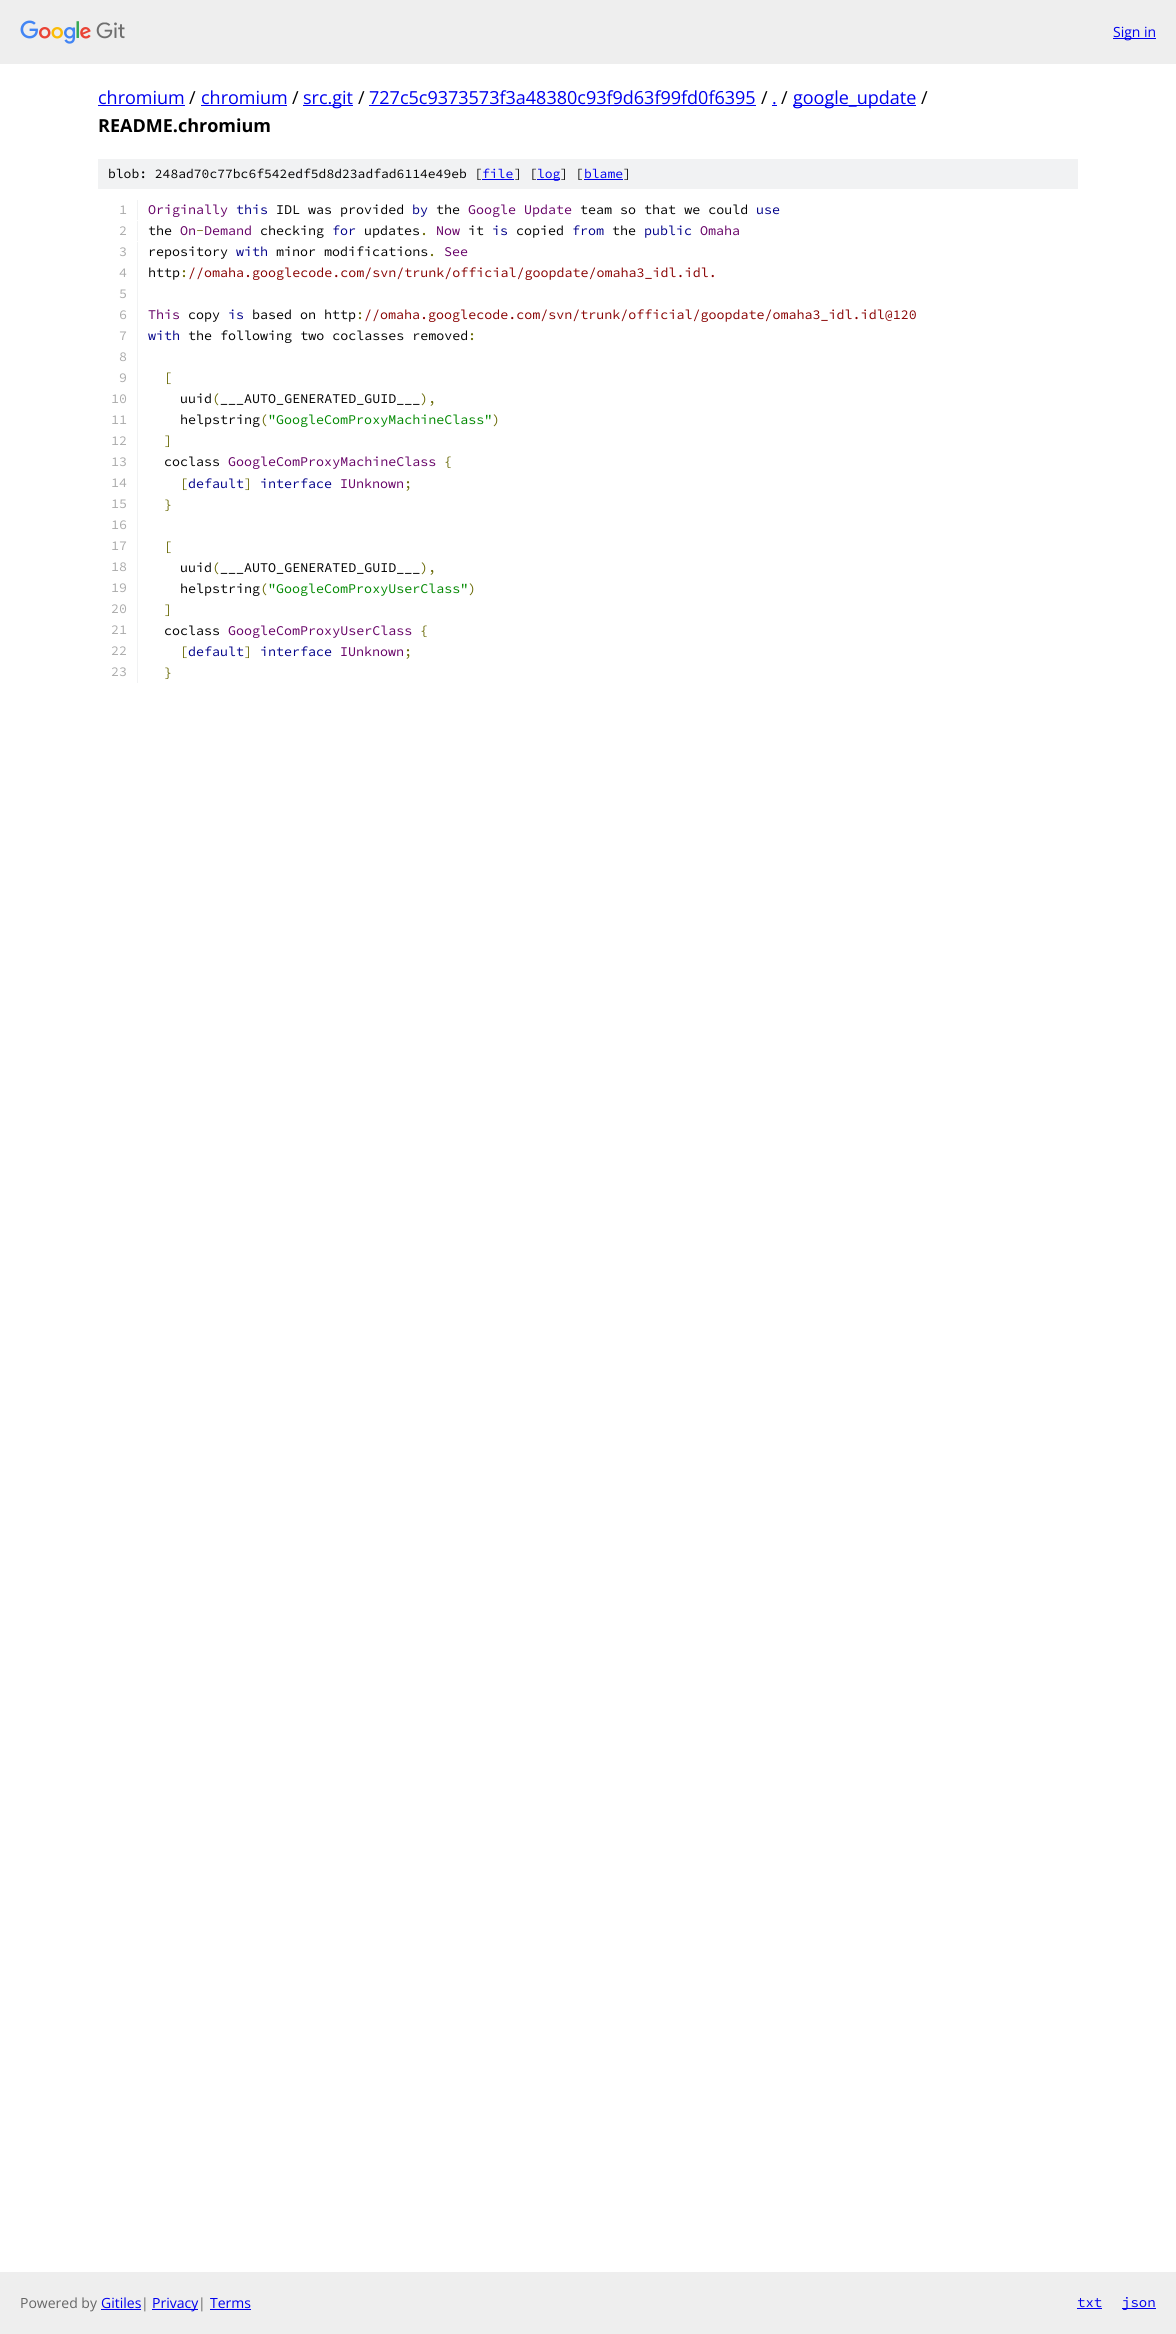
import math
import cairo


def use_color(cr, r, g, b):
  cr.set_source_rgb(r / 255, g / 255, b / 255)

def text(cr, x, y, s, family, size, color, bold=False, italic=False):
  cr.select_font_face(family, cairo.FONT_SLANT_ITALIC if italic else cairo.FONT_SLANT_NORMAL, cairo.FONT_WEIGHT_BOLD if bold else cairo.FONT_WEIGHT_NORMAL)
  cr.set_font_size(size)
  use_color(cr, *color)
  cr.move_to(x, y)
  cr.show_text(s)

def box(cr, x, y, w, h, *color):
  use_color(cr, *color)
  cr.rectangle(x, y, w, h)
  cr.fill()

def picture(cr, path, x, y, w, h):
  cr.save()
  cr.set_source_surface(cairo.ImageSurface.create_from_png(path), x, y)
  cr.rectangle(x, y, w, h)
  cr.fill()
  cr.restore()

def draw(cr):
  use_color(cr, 255, 255, 255)
  cr.paint()
  box(cr, 0, 0, 1176, 64, 238, 238, 238)
  picture(cr, "img_01.png", 20, 20, 105, 24)
  box(cr, 1113, 38, 43, 1, 0, 0, 238)
  box(cr, 98, 105, 87, 1, 0, 0, 238)
  box(cr, 201, 105, 86, 1, 0, 0, 238)
  box(cr, 303, 105, 50, 1, 0, 0, 238)
  box(cr, 369, 105, 387, 1, 0, 0, 238)
  box(cr, 772, 105, 5, 1, 0, 0, 238)
  box(cr, 793, 105, 123, 1, 0, 0, 238)
  box(cr, 98, 159, 980, 30, 241, 242, 243)
  box(cr, 482, 179, 32, 1, 0, 0, 238)
  box(cr, 537, 179, 23, 1, 0, 0, 238)
  box(cr, 584, 179, 39, 1, 0, 0, 238)
  box(cr, 137, 200, 1, 20, 241, 242, 243)
  box(cr, 137, 221, 1, 20, 241, 242, 243)
  box(cr, 137, 242, 1, 441, 241, 242, 243)
  box(cr, 0, 2272, 1176, 62, 238, 238, 238)
  box(cr, 101, 2309, 40, 1, 0, 0, 238)
  box(cr, 152, 2309, 46, 1, 0, 0, 238)
  box(cr, 210, 2309, 41, 1, 0, 0, 238)
  box(cr, 1077, 2308, 25, 1, 0, 0, 238)
  box(cr, 1122, 2308, 34, 1, 0, 0, 238)
  text(cr, 1113, 37, "Sign in", "Open Sans", 14, (0, 0, 238))
  text(cr, 98, 104, "chromium", "Open Sans", 18, (0, 0, 238))
  text(cr, 189, 104, "/", "Open Sans", 18, (0, 0, 0))
  text(cr, 201, 104, "chromium", "Open Sans", 18, (0, 0, 238))
  text(cr, 292, 104, "/", "Open Sans", 18, (0, 0, 0))
  text(cr, 303, 104, "src.git", "Open Sans", 18, (0, 0, 238))
  text(cr, 358, 104, "/", "Open Sans", 18, (0, 0, 0))
  text(cr, 369, 104, "727c5c9373573f3a48380c93f9d63f99fd0f6395", "Open Sans", 18, (0, 0, 238))
  text(cr, 761, 104, "/", "Open Sans", 18, (0, 0, 0))
  text(cr, 772, 104, ".", "Open Sans", 18, (0, 0, 238))
  text(cr, 781, 104, "/", "Open Sans", 18, (0, 0, 0))
  text(cr, 793, 104, "google_update", "Open Sans", 18, (0, 0, 238))
  text(cr, 921, 104, "/", "Open Sans", 18, (0, 0, 0))
  text(cr, 98, 132, "README.chromium", "Open Sans", 18, (0, 0, 0), bold=True)
  text(cr, 108, 178, "blob: 248ad70c77bc6f542edf5d8d23adfad6114e49eb [", "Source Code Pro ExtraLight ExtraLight", 13, (0, 0, 0))
  text(cr, 482, 178, "file", "Source Code Pro ExtraLight ExtraLight", 13, (0, 0, 238))
  text(cr, 514, 178, "] [", "Source Code Pro ExtraLight ExtraLight", 13, (0, 0, 0))
  text(cr, 537, 178, "log", "Source Code Pro ExtraLight ExtraLight", 13, (0, 0, 238))
  text(cr, 560, 178, "] [", "Source Code Pro ExtraLight ExtraLight", 13, (0, 0, 0))
  text(cr, 584, 178, "blame", "Source Code Pro ExtraLight ExtraLight", 13, (0, 0, 238))
  text(cr, 623, 178, "]", "Source Code Pro ExtraLight ExtraLight", 13, (0, 0, 0))
  text(cr, 119, 214, "1", "Source Code Pro ExtraLight ExtraLight", 13.35, (170, 170, 170))
  text(cr, 148, 214, "Originally", "Source Code Pro ExtraLight ExtraLight", 13.35, (102, 0, 102))
  text(cr, 236, 214, "this", "Source Code Pro ExtraLight ExtraLight", 13.35, (0, 0, 136))
  text(cr, 276, 214, "IDL was provided", "Source Code Pro ExtraLight ExtraLight", 13.35, (0, 0, 0))
  text(cr, 412, 214, "by", "Source Code Pro ExtraLight ExtraLight", 13.35, (0, 0, 136))
  text(cr, 436, 214, "the", "Source Code Pro ExtraLight ExtraLight", 13.35, (0, 0, 0))
  text(cr, 468, 214, "Google Update", "Source Code Pro ExtraLight ExtraLight", 13.35, (102, 0, 102))
  text(cr, 580, 214, "team so that we could", "Source Code Pro ExtraLight ExtraLight", 13.35, (0, 0, 0))
  text(cr, 756, 214, "use", "Source Code Pro ExtraLight ExtraLight", 13.35, (0, 0, 136))
  text(cr, 119, 235, "2", "Source Code Pro ExtraLight ExtraLight", 13.35, (170, 170, 170))
  text(cr, 148, 235, "the", "Source Code Pro ExtraLight ExtraLight", 13.35, (0, 0, 0))
  text(cr, 180, 235, "On Demand", "Source Code Pro ExtraLight ExtraLight", 13.35, (102, 0, 102))
  text(cr, 260, 235, "checking", "Source Code Pro ExtraLight ExtraLight", 13.35, (0, 0, 0))
  text(cr, 332, 235, "for", "Source Code Pro ExtraLight ExtraLight", 13.35, (0, 0, 136))
  text(cr, 364, 235, "updates", "Source Code Pro ExtraLight ExtraLight", 13.35, (0, 0, 0))
  text(cr, 436, 235, "Now", "Source Code Pro ExtraLight ExtraLight", 13.35, (102, 0, 102))
  text(cr, 468, 235, "it", "Source Code Pro ExtraLight ExtraLight", 13.35, (0, 0, 0))
  text(cr, 492, 235, "is", "Source Code Pro ExtraLight ExtraLight", 13.35, (0, 0, 136))
  text(cr, 516, 235, "copied", "Source Code Pro ExtraLight ExtraLight", 13.35, (0, 0, 0))
  text(cr, 572, 235, "from", "Source Code Pro ExtraLight ExtraLight", 13.35, (0, 0, 136))
  text(cr, 612, 235, "the", "Source Code Pro ExtraLight ExtraLight", 13.35, (0, 0, 0))
  text(cr, 644, 235, "public", "Source Code Pro ExtraLight ExtraLight", 13.35, (0, 0, 136))
  text(cr, 700, 235, "Omaha", "Source Code Pro ExtraLight ExtraLight", 13.35, (102, 0, 102))
  text(cr, 196, 235, "-", "Source Code Pro ExtraLight ExtraLight", 13.35, (102, 102, 0))
  text(cr, 420, 235, ".", "Source Code Pro ExtraLight ExtraLight", 13.35, (102, 102, 0))
  text(cr, 119, 256, "3", "Source Code Pro ExtraLight ExtraLight", 13.35, (170, 170, 170))
  text(cr, 148, 256, "repository", "Source Code Pro ExtraLight ExtraLight", 13.35, (0, 0, 0))
  text(cr, 236, 256, "with", "Source Code Pro ExtraLight ExtraLight", 13.35, (0, 0, 136))
  text(cr, 276, 256, "minor modifications", "Source Code Pro ExtraLight ExtraLight", 13.35, (0, 0, 0))
  text(cr, 428, 256, ".", "Source Code Pro ExtraLight ExtraLight", 13.35, (102, 102, 0))
  text(cr, 444, 256, "See", "Source Code Pro ExtraLight ExtraLight", 13.35, (102, 0, 102))
  text(cr, 119, 277, "4", "Source Code Pro ExtraLight ExtraLight", 13.35, (170, 170, 170))
  text(cr, 148, 277, "http", "Source Code Pro ExtraLight ExtraLight", 13.35, (0, 0, 0))
  text(cr, 180, 277, ":", "Source Code Pro ExtraLight ExtraLight", 13.35, (102, 102, 0))
  text(cr, 188, 277, "//omaha.googlecode.com/svn/trunk/official/goopdate/omaha3_idl.idl.", "Source Code Pro ExtraLight ExtraLight", 13.35, (136, 0, 0))
  text(cr, 119, 298, "5", "Source Code Pro ExtraLight ExtraLight", 13.35, (170, 170, 170))
  text(cr, 119, 319, "6", "Source Code Pro ExtraLight ExtraLight", 13.35, (170, 170, 170))
  text(cr, 148, 319, "This", "Source Code Pro ExtraLight ExtraLight", 13.35, (102, 0, 102))
  text(cr, 188, 319, "copy", "Source Code Pro ExtraLight ExtraLight", 13.35, (0, 0, 0))
  text(cr, 228, 319, "is", "Source Code Pro ExtraLight ExtraLight", 13.35, (0, 0, 136))
  text(cr, 252, 319, "based on http", "Source Code Pro ExtraLight ExtraLight", 13.35, (0, 0, 0))
  text(cr, 356, 319, ":", "Source Code Pro ExtraLight ExtraLight", 13.35, (102, 102, 0))
  text(cr, 364, 319, "//omaha.googlecode.com/svn/trunk/official/goopdate/omaha3_idl.idl@120", "Source Code Pro ExtraLight ExtraLight", 13.35, (136, 0, 0))
  text(cr, 119, 340, "7", "Source Code Pro ExtraLight ExtraLight", 13.35, (170, 170, 170))
  text(cr, 148, 340, "with", "Source Code Pro ExtraLight ExtraLight", 13.35, (0, 0, 136))
  text(cr, 188, 340, "the following two coclasses removed", "Source Code Pro ExtraLight ExtraLight", 13.35, (0, 0, 0))
  text(cr, 468, 340, ":", "Source Code Pro ExtraLight ExtraLight", 13.35, (102, 102, 0))
  text(cr, 119, 361, "8", "Source Code Pro ExtraLight ExtraLight", 13.35, (170, 170, 170))
  text(cr, 119, 382, "9", "Source Code Pro ExtraLight ExtraLight", 13.35, (170, 170, 170))
  text(cr, 164, 382, "[", "Source Code Pro ExtraLight ExtraLight", 13.35, (102, 102, 0))
  text(cr, 111, 403, "10", "Source Code Pro ExtraLight ExtraLight", 13.35, (170, 170, 170))
  text(cr, 180, 403, "uuid ___AUTO_GENERATED_GUID___", "Source Code Pro ExtraLight ExtraLight", 13.35, (0, 0, 0))
  text(cr, 212, 403, "(", "Source Code Pro ExtraLight ExtraLight", 13.35, (102, 102, 0))
  text(cr, 420, 403, "),", "Source Code Pro ExtraLight ExtraLight", 13.35, (102, 102, 0))
  text(cr, 111, 424, "11", "Source Code Pro ExtraLight ExtraLight", 13.35, (170, 170, 170))
  text(cr, 180, 424, "helpstring", "Source Code Pro ExtraLight ExtraLight", 13.35, (0, 0, 0))
  text(cr, 260, 424, "(", "Source Code Pro ExtraLight ExtraLight", 13.35, (102, 102, 0))
  text(cr, 268, 424, "\"GoogleComProxyMachineClass\"", "Source Code Pro ExtraLight ExtraLight", 13.35, (0, 136, 0))
  text(cr, 492, 424, ")", "Source Code Pro ExtraLight ExtraLight", 13.35, (102, 102, 0))
  text(cr, 111, 445, "12", "Source Code Pro ExtraLight ExtraLight", 13.35, (170, 170, 170))
  text(cr, 164, 445, "]", "Source Code Pro ExtraLight ExtraLight", 13.35, (102, 102, 0))
  text(cr, 111, 466, "13", "Source Code Pro ExtraLight ExtraLight", 13.35, (170, 170, 170))
  text(cr, 164, 466, "coclass", "Source Code Pro ExtraLight ExtraLight", 13.35, (0, 0, 0))
  text(cr, 228, 466, "GoogleComProxyMachineClass", "Source Code Pro ExtraLight ExtraLight", 13.35, (102, 0, 102))
  text(cr, 444, 466, "{", "Source Code Pro ExtraLight ExtraLight", 13.35, (102, 102, 0))
  text(cr, 111, 487, "14", "Source Code Pro ExtraLight ExtraLight", 13.35, (170, 170, 170))
  text(cr, 180, 488, "[", "Source Code Pro ExtraLight ExtraLight", 13.35, (102, 102, 0))
  text(cr, 188, 488, "default", "Source Code Pro ExtraLight ExtraLight", 13.35, (0, 0, 136))
  text(cr, 244, 488, "]", "Source Code Pro ExtraLight ExtraLight", 13.35, (102, 102, 0))
  text(cr, 260, 488, "interface", "Source Code Pro ExtraLight ExtraLight", 13.35, (0, 0, 136))
  text(cr, 340, 488, "IUnknown", "Source Code Pro ExtraLight ExtraLight", 13.35, (102, 0, 102))
  text(cr, 404, 488, ";", "Source Code Pro ExtraLight ExtraLight", 13.35, (102, 102, 0))
  text(cr, 111, 508, "15", "Source Code Pro ExtraLight ExtraLight", 13.35, (170, 170, 170))
  text(cr, 164, 509, "}", "Source Code Pro ExtraLight ExtraLight", 13.35, (102, 102, 0))
  text(cr, 111, 529, "16", "Source Code Pro ExtraLight ExtraLight", 13.35, (170, 170, 170))
  text(cr, 111, 550, "17", "Source Code Pro ExtraLight ExtraLight", 13.35, (170, 170, 170))
  text(cr, 164, 551, "[", "Source Code Pro ExtraLight ExtraLight", 13.35, (102, 102, 0))
  text(cr, 111, 571, "18", "Source Code Pro ExtraLight ExtraLight", 13.35, (170, 170, 170))
  text(cr, 180, 572, "uuid ___AUTO_GENERATED_GUID___", "Source Code Pro ExtraLight ExtraLight", 13.35, (0, 0, 0))
  text(cr, 212, 572, "(", "Source Code Pro ExtraLight ExtraLight", 13.35, (102, 102, 0))
  text(cr, 420, 572, "),", "Source Code Pro ExtraLight ExtraLight", 13.35, (102, 102, 0))
  text(cr, 111, 592, "19", "Source Code Pro ExtraLight ExtraLight", 13.35, (170, 170, 170))
  text(cr, 180, 593, "helpstring", "Source Code Pro ExtraLight ExtraLight", 13.35, (0, 0, 0))
  text(cr, 260, 593, "(", "Source Code Pro ExtraLight ExtraLight", 13.35, (102, 102, 0))
  text(cr, 268, 593, "\"GoogleComProxyUserClass\"", "Source Code Pro ExtraLight ExtraLight", 13.35, (0, 136, 0))
  text(cr, 468, 593, ")", "Source Code Pro ExtraLight ExtraLight", 13.35, (102, 102, 0))
  text(cr, 111, 613, "20", "Source Code Pro ExtraLight ExtraLight", 13.35, (170, 170, 170))
  text(cr, 164, 614, "]", "Source Code Pro ExtraLight ExtraLight", 13.35, (102, 102, 0))
  text(cr, 111, 634, "21", "Source Code Pro ExtraLight ExtraLight", 13.35, (170, 170, 170))
  text(cr, 164, 635, "coclass", "Source Code Pro ExtraLight ExtraLight", 13.35, (0, 0, 0))
  text(cr, 228, 635, "GoogleComProxyUserClass", "Source Code Pro ExtraLight ExtraLight", 13.35, (102, 0, 102))
  text(cr, 420, 635, "{", "Source Code Pro ExtraLight ExtraLight", 13.35, (102, 102, 0))
  text(cr, 111, 655, "22", "Source Code Pro ExtraLight ExtraLight", 13.35, (170, 170, 170))
  text(cr, 180, 656, "[", "Source Code Pro ExtraLight ExtraLight", 13.35, (102, 102, 0))
  text(cr, 188, 656, "default", "Source Code Pro ExtraLight ExtraLight", 13.35, (0, 0, 136))
  text(cr, 244, 656, "]", "Source Code Pro ExtraLight ExtraLight", 13.35, (102, 102, 0))
  text(cr, 260, 656, "interface", "Source Code Pro ExtraLight ExtraLight", 13.35, (0, 0, 136))
  text(cr, 340, 656, "IUnknown", "Source Code Pro ExtraLight ExtraLight", 13.35, (102, 0, 102))
  text(cr, 404, 656, ";", "Source Code Pro ExtraLight ExtraLight", 13.35, (102, 102, 0))
  text(cr, 111, 676, "23", "Source Code Pro ExtraLight ExtraLight", 13.35, (170, 170, 170))
  text(cr, 164, 677, "}", "Source Code Pro ExtraLight ExtraLight", 13.35, (102, 102, 0))
  text(cr, 20, 2308, "Powered by", "Open Sans", 14, (102, 102, 102))
  text(cr, 101, 2308, "Gitiles", "Open Sans", 14, (0, 0, 238))
  text(cr, 141, 2308, "|", "Open Sans", 14, (102, 102, 102))
  text(cr, 152, 2308, "Privacy", "Open Sans", 14, (0, 0, 238))
  text(cr, 198, 2308, "|", "Open Sans", 14, (102, 102, 102))
  text(cr, 210, 2308, "Terms", "Open Sans", 14, (0, 0, 238))
  text(cr, 1077, 2307, "txt", "Source Code Pro ExtraLight ExtraLight", 14, (0, 0, 238))
  text(cr, 1122, 2307, "json", "Source Code Pro ExtraLight ExtraLight", 14, (0, 0, 238))


surface = cairo.ImageSurface(cairo.FORMAT_RGB24, 1176, 2334)
cr = cairo.Context(surface)
options = cairo.FontOptions()
options.set_hint_metrics(cairo.HINT_METRICS_OFF)
options.set_hint_style(cairo.HINT_STYLE_NONE)
cr.set_font_options(options)
cr.set_miter_limit(4)
draw(cr)
surface.write_to_png("out.png")
